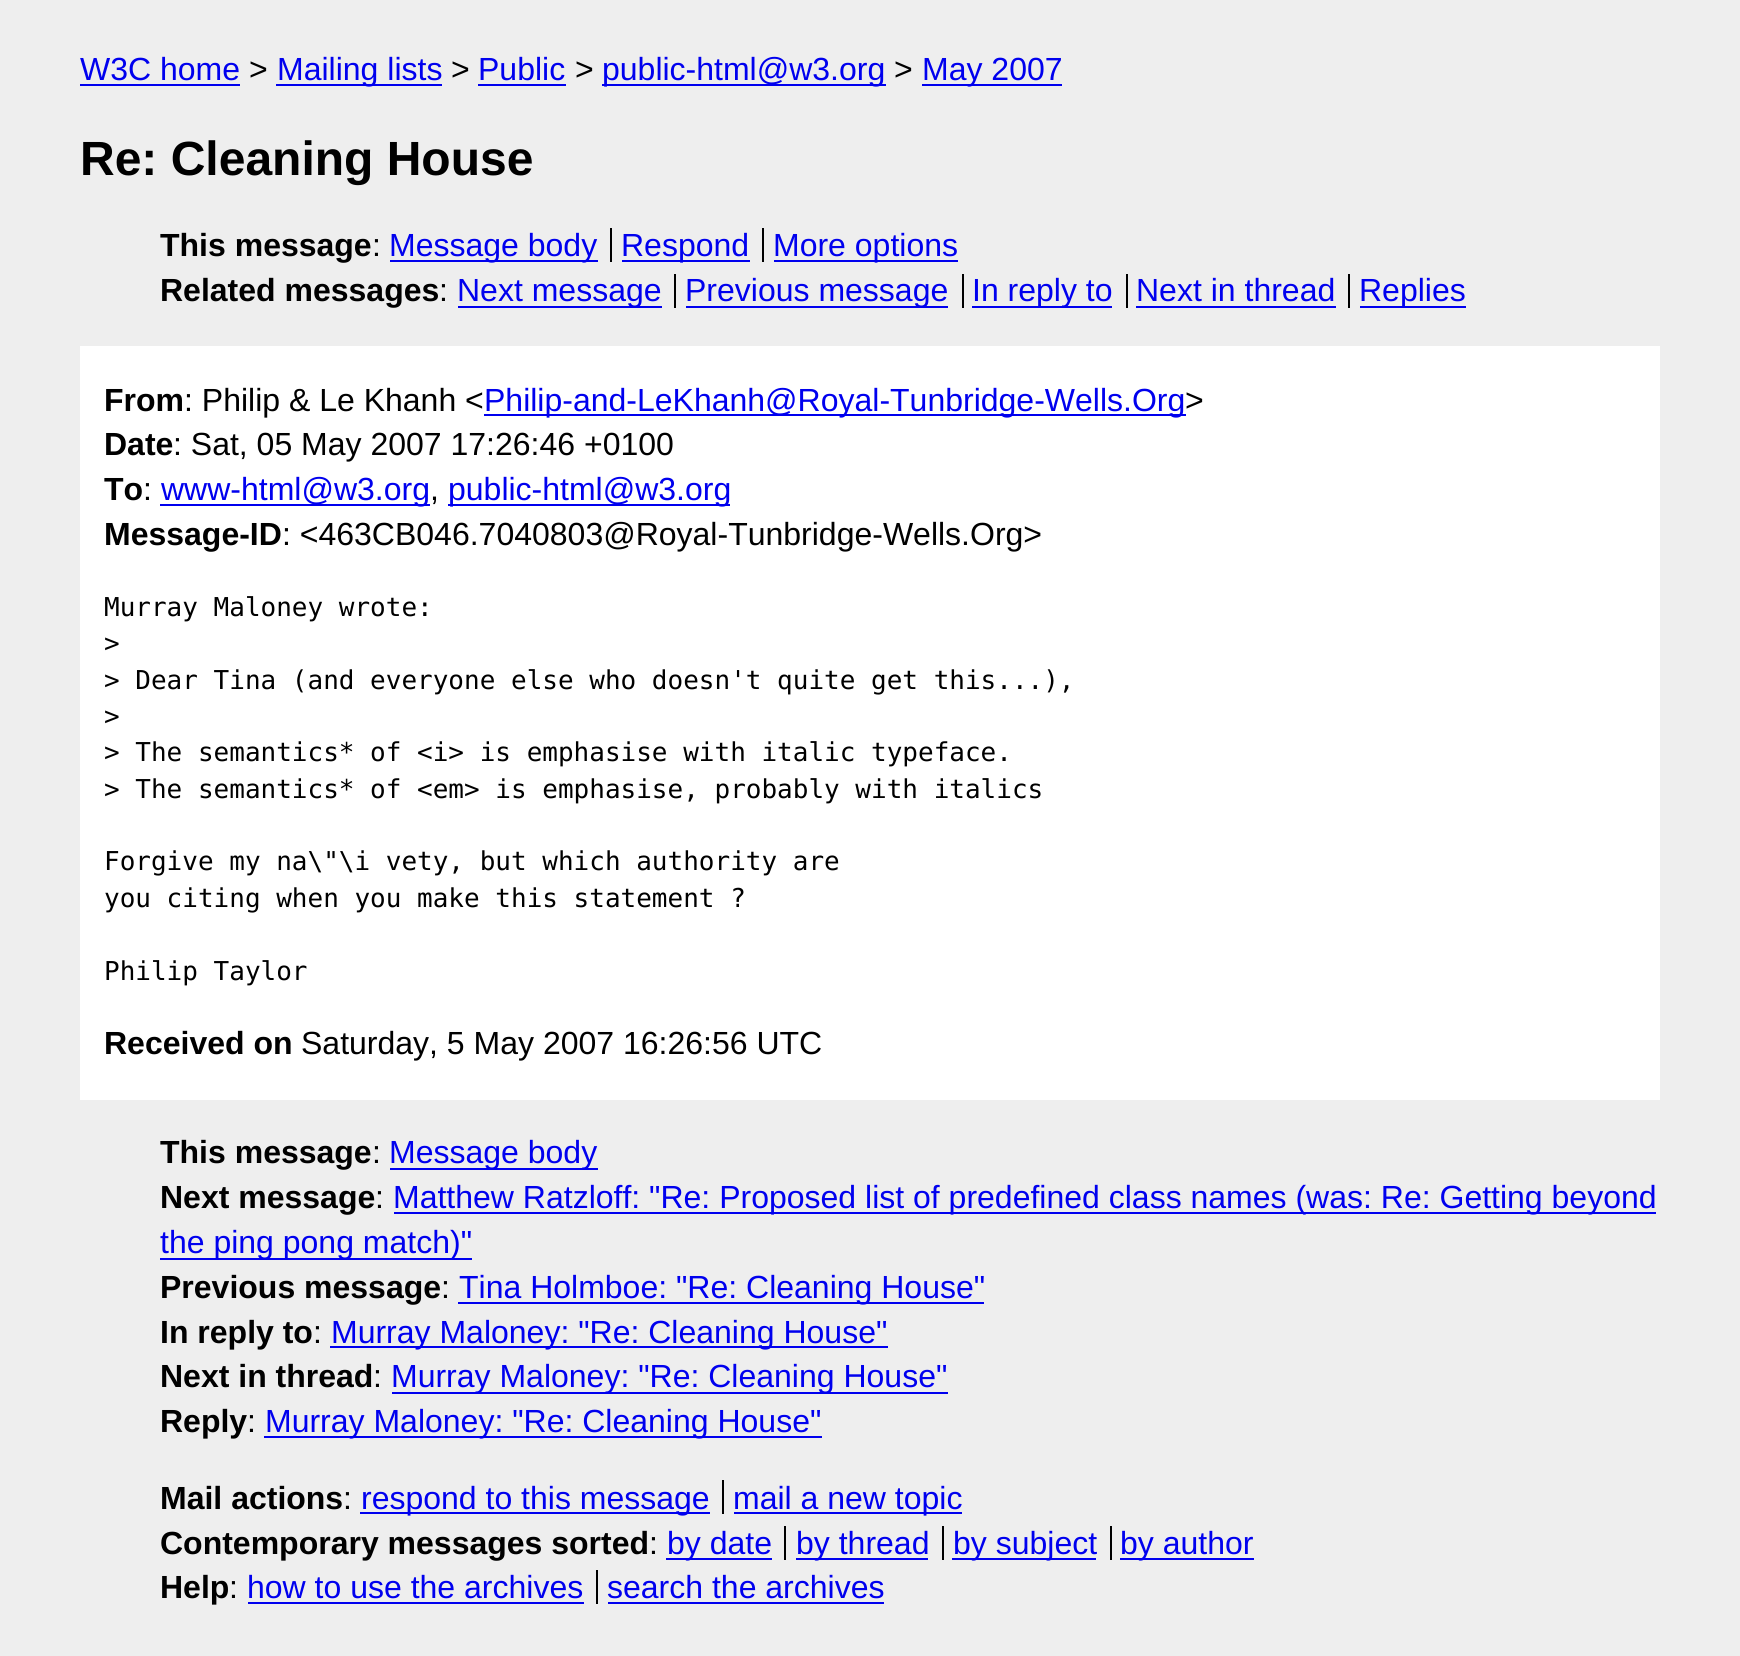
import math
import cairo


def use_color(cr, r, g, b):
  cr.set_source_rgb(r / 255, g / 255, b / 255)

def text(cr, x, y, s, family, size, color, bold=False, italic=False):
  cr.select_font_face(family, cairo.FONT_SLANT_ITALIC if italic else cairo.FONT_SLANT_NORMAL, cairo.FONT_WEIGHT_BOLD if bold else cairo.FONT_WEIGHT_NORMAL)
  cr.set_font_size(size)
  use_color(cr, *color)
  cr.move_to(x, y)
  cr.show_text(s)

def box(cr, x, y, w, h, *color):
  use_color(cr, *color)
  cr.rectangle(x, y, w, h)
  cr.fill()

def draw(cr):
  use_color(cr, 238, 238, 238)
  cr.paint()
  box(cr, 80, 84, 160, 2, 0, 0, 238)
  box(cr, 276, 84, 166, 2, 0, 0, 238)
  box(cr, 478, 84, 88, 2, 0, 0, 238)
  box(cr, 602, 84, 284, 2, 0, 0, 238)
  box(cr, 922, 84, 140, 2, 0, 0, 238)
  box(cr, 390, 260, 208, 2, 0, 0, 238)
  box(cr, 610, 228, 2, 34, 0, 0, 0)
  box(cr, 622, 260, 128, 2, 0, 0, 238)
  box(cr, 762, 228, 2, 34, 0, 0, 0)
  box(cr, 774, 260, 184, 2, 0, 0, 238)
  box(cr, 458, 306, 204, 2, 0, 0, 238)
  box(cr, 674, 274, 2, 34, 0, 0, 0)
  box(cr, 686, 306, 262, 2, 0, 0, 238)
  box(cr, 962, 274, 2, 34, 0, 0, 0)
  box(cr, 972, 306, 140, 2, 0, 0, 238)
  box(cr, 1126, 274, 2, 34, 0, 0, 0)
  box(cr, 1136, 306, 200, 2, 0, 0, 238)
  box(cr, 1348, 274, 2, 34, 0, 0, 0)
  box(cr, 1360, 306, 106, 2, 0, 0, 238)
  box(cr, 80, 346, 1580, 754, 255, 255, 255)
  box(cr, 484, 414, 702, 2, 0, 0, 238)
  box(cr, 160, 504, 270, 2, 0, 0, 238)
  box(cr, 448, 504, 282, 2, 0, 0, 238)
  box(cr, 390, 1168, 208, 2, 0, 0, 238)
  box(cr, 394, 1212, 1262, 2, 0, 0, 238)
  box(cr, 160, 1258, 312, 2, 0, 0, 238)
  box(cr, 458, 1302, 526, 2, 0, 0, 238)
  box(cr, 330, 1346, 558, 2, 0, 0, 238)
  box(cr, 392, 1392, 556, 2, 0, 0, 238)
  box(cr, 264, 1436, 558, 2, 0, 0, 238)
  box(cr, 360, 1512, 350, 2, 0, 0, 238)
  box(cr, 722, 1480, 2, 34, 0, 0, 0)
  box(cr, 734, 1512, 228, 2, 0, 0, 238)
  box(cr, 666, 1558, 106, 2, 0, 0, 238)
  box(cr, 784, 1526, 2, 34, 0, 0, 0)
  box(cr, 796, 1558, 132, 2, 0, 0, 238)
  box(cr, 942, 1526, 2, 34, 0, 0, 0)
  box(cr, 952, 1558, 144, 2, 0, 0, 238)
  box(cr, 1110, 1526, 2, 34, 0, 0, 0)
  box(cr, 1120, 1558, 134, 2, 0, 0, 238)
  box(cr, 248, 1602, 336, 2, 0, 0, 238)
  box(cr, 596, 1570, 2, 34, 0, 0, 0)
  box(cr, 608, 1602, 276, 2, 0, 0, 238)
  text(cr, 80, 80, "W3C home", "Liberation Sans", 32, (0, 0, 238))
  text(cr, 249, 80, ">", "Liberation Sans", 32, (0, 0, 0))
  text(cr, 277, 80, "Mailing lists", "Liberation Sans", 32, (0, 0, 238))
  text(cr, 451, 80, ">", "Liberation Sans", 32, (0, 0, 0))
  text(cr, 478, 80, "Public", "Liberation Sans", 32, (0, 0, 238))
  text(cr, 575, 80, ">", "Liberation Sans", 32, (0, 0, 0))
  text(cr, 602, 80, "public-html@w3.org", "Liberation Sans", 32, (0, 0, 238))
  text(cr, 894, 80, ">", "Liberation Sans", 32, (0, 0, 0))
  text(cr, 922, 80, "May 2007", "Liberation Sans", 32, (0, 0, 238))
  text(cr, 80, 175, "Re: Cleaning House", "Liberation Sans", 48, (0, 0, 0), bold=True)
  text(cr, 160, 256, "This message", "Liberation Sans", 32, (0, 0, 0), bold=True)
  text(cr, 372, 256, ":", "Liberation Sans", 32, (0, 0, 0))
  text(cr, 389, 256, "Message body", "Liberation Sans", 32, (0, 0, 238))
  text(cr, 621, 256, "Respond", "Liberation Sans", 32, (0, 0, 238))
  text(cr, 773, 256, "More options", "Liberation Sans", 32, (0, 0, 238))
  text(cr, 160, 301, "Related messages", "Liberation Sans", 32, (0, 0, 0), bold=True)
  text(cr, 439, 301, ":", "Liberation Sans", 32, (0, 0, 0))
  text(cr, 457, 301, "Next message", "Liberation Sans", 32, (0, 0, 238))
  text(cr, 685, 301, "Previous message", "Liberation Sans", 32, (0, 0, 238))
  text(cr, 972, 301, "In reply to", "Liberation Sans", 32, (0, 0, 238))
  text(cr, 1136, 301, "Next in thread", "Liberation Sans", 32, (0, 0, 238))
  text(cr, 1359, 301, "Replies", "Liberation Sans", 32, (0, 0, 238))
  text(cr, 104, 411, "From", "Liberation Sans", 32, (0, 0, 0), bold=True)
  text(cr, 184, 411, ": Philip & Le Khanh <", "Liberation Sans", 32, (0, 0, 0))
  text(cr, 484, 411, "Philip-and-LeKhanh@Royal-Tunbridge-Wells.Org", "Liberation Sans", 32, (0, 0, 238))
  text(cr, 1185, 411, ">", "Liberation Sans", 32, (0, 0, 0))
  text(cr, 104, 455, "Date", "Liberation Sans", 32, (0, 0, 0), bold=True)
  text(cr, 173, 455, ": Sat, 05 May 2007 17:26:46 +0100", "Liberation Sans", 32, (0, 0, 0))
  text(cr, 104, 500, "To", "Liberation Sans", 32, (0, 0, 0), bold=True)
  text(cr, 143, 500, ":", "Liberation Sans", 32, (0, 0, 0))
  text(cr, 161, 500, "www-html@w3.org", "Liberation Sans", 32, (0, 0, 238))
  text(cr, 430, 500, ",", "Liberation Sans", 32, (0, 0, 0))
  text(cr, 448, 500, "public-html@w3.org", "Liberation Sans", 32, (0, 0, 238))
  text(cr, 104, 545, "Message-ID", "Liberation Sans", 32, (0, 0, 0), bold=True)
  text(cr, 282, 545, ": <463CB046.7040803@Royal-Tunbridge-Wells.Org>", "Liberation Sans", 32, (0, 0, 0))
  text(cr, 104, 616, "Murray Maloney wrote:", "DejaVu Sans Mono", 26, (0, 0, 0))
  text(cr, 104, 652, ">", "DejaVu Sans Mono", 26, (0, 0, 0))
  text(cr, 104, 689, "> Dear Tina (and everyone else who doesn't quite get this...),", "DejaVu Sans Mono", 26, (0, 0, 0))
  text(cr, 104, 725, ">", "DejaVu Sans Mono", 26, (0, 0, 0))
  text(cr, 104, 761, "> The semantics* of <i> is emphasise with italic typeface.", "DejaVu Sans Mono", 26, (0, 0, 0))
  text(cr, 104, 798, "> The semantics* of <em> is emphasise, probably with italics", "DejaVu Sans Mono", 26, (0, 0, 0))
  text(cr, 104, 870, "Forgive my na\\\"\\i vety, but which authority are", "DejaVu Sans Mono", 26, (0, 0, 0))
  text(cr, 104, 907, "you citing when you make this statement ?", "DejaVu Sans Mono", 26, (0, 0, 0))
  text(cr, 104, 980, "Philip Taylor", "DejaVu Sans Mono", 26, (0, 0, 0))
  text(cr, 104, 1054, "Received on", "Liberation Sans", 32, (0, 0, 0), bold=True)
  text(cr, 301, 1054, "Saturday, 5 May 2007 16:26:56 UTC", "Liberation Sans", 32, (0, 0, 0))
  text(cr, 160, 1163, "This message", "Liberation Sans", 32, (0, 0, 0), bold=True)
  text(cr, 372, 1163, ":", "Liberation Sans", 32, (0, 0, 0))
  text(cr, 389, 1163, "Message body", "Liberation Sans", 32, (0, 0, 238))
  text(cr, 160, 1208, "Next message", "Liberation Sans", 32, (0, 0, 0), bold=True)
  text(cr, 375, 1208, ":", "Liberation Sans", 32, (0, 0, 0))
  text(cr, 393, 1208, "Matthew Ratzloff: \"Re: Proposed list of predefined class names (was: Re: Getting beyond", "Liberation Sans", 32, (0, 0, 238))
  text(cr, 160, 1253, "the ping pong match)\"", "Liberation Sans", 32, (0, 0, 238))
  text(cr, 160, 1298, "Previous message", "Liberation Sans", 32, (0, 0, 0), bold=True)
  text(cr, 441, 1298, ":", "Liberation Sans", 32, (0, 0, 0))
  text(cr, 459, 1298, "Tina Holmboe: \"Re: Cleaning House\"", "Liberation Sans", 32, (0, 0, 238))
  text(cr, 160, 1343, "In reply to", "Liberation Sans", 32, (0, 0, 0), bold=True)
  text(cr, 313, 1343, ":", "Liberation Sans", 32, (0, 0, 0))
  text(cr, 331, 1343, "Murray Maloney: \"Re: Cleaning House\"", "Liberation Sans", 32, (0, 0, 238))
  text(cr, 160, 1387, "Next in thread", "Liberation Sans", 32, (0, 0, 0), bold=True)
  text(cr, 373, 1387, ":", "Liberation Sans", 32, (0, 0, 0))
  text(cr, 391, 1387, "Murray Maloney: \"Re: Cleaning House\"", "Liberation Sans", 32, (0, 0, 238))
  text(cr, 160, 1432, "Reply", "Liberation Sans", 32, (0, 0, 0), bold=True)
  text(cr, 247, 1432, ":", "Liberation Sans", 32, (0, 0, 0))
  text(cr, 265, 1432, "Murray Maloney: \"Re: Cleaning House\"", "Liberation Sans", 32, (0, 0, 238))
  text(cr, 160, 1509, "Mail actions", "Liberation Sans", 32, (0, 0, 0), bold=True)
  text(cr, 343, 1509, ":", "Liberation Sans", 32, (0, 0, 0))
  text(cr, 361, 1509, "respond to this message", "Liberation Sans", 32, (0, 0, 238))
  text(cr, 733, 1509, "mail a new topic", "Liberation Sans", 32, (0, 0, 238))
  text(cr, 160, 1554, "Contemporary messages sorted", "Liberation Sans", 32, (0, 0, 0), bold=True)
  text(cr, 649, 1554, ":", "Liberation Sans", 32, (0, 0, 0))
  text(cr, 667, 1554, "by date", "Liberation Sans", 32, (0, 0, 238))
  text(cr, 796, 1554, "by thread", "Liberation Sans", 32, (0, 0, 238))
  text(cr, 953, 1554, "by subject", "Liberation Sans", 32, (0, 0, 238))
  text(cr, 1120, 1554, "by author", "Liberation Sans", 32, (0, 0, 238))
  text(cr, 160, 1598, "Help", "Liberation Sans", 32, (0, 0, 0), bold=True)
  text(cr, 229, 1598, ":", "Liberation Sans", 32, (0, 0, 0))
  text(cr, 247, 1598, "how to use the archives", "Liberation Sans", 32, (0, 0, 238))
  text(cr, 607, 1598, "search the archives", "Liberation Sans", 32, (0, 0, 238))


surface = cairo.ImageSurface(cairo.FORMAT_RGB24, 1740, 1656)
cr = cairo.Context(surface)
options = cairo.FontOptions()
options.set_hint_metrics(cairo.HINT_METRICS_OFF)
options.set_hint_style(cairo.HINT_STYLE_NONE)
cr.set_font_options(options)
cr.set_miter_limit(4)
draw(cr)
surface.write_to_png("out.png")
